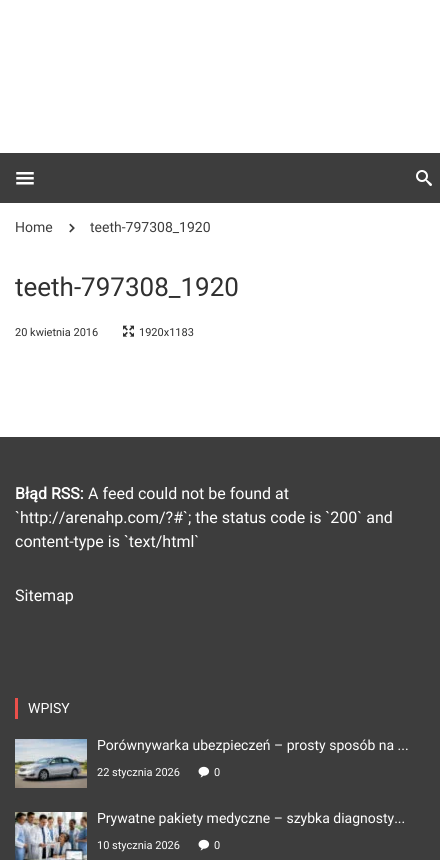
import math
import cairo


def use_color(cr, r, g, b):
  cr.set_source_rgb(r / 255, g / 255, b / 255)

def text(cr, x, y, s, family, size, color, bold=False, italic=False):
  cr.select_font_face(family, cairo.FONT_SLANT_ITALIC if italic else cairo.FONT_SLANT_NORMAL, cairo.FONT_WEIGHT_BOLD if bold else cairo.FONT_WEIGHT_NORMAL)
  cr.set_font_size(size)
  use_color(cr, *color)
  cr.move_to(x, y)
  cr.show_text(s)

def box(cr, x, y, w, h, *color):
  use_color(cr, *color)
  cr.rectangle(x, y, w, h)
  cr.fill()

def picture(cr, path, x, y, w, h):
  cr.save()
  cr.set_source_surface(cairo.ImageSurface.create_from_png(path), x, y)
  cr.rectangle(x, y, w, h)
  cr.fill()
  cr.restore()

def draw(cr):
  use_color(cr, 255, 255, 255)
  cr.paint()
  box(cr, 0, 153, 440, 50, 61, 61, 61)
  picture(cr, "img_01.png", 16, 172, 18, 13)
  picture(cr, "img_02.png", 416, 170, 16, 16)
  picture(cr, "img_03.png", 69, 223, 6, 10)
  picture(cr, "img_04.png", 123, 325, 11, 12)
  box(cr, 0, 437, 440, 423, 61, 61, 61)
  box(cr, 15, 698, 3, 21, 235, 80, 75)
  picture(cr, "img_05.png", 15, 739, 72, 49)
  picture(cr, "img_06.png", 198, 766, 12, 12)
  picture(cr, "img_07.png", 15, 812, 72, 48)
  picture(cr, "img_06.png", 198, 839, 12, 12)
  text(cr, 15, 232, "Home", "Roboto", 14, (61, 61, 61))
  text(cr, 90, 232, "teeth-797308_1920", "Roboto", 14, (61, 61, 61))
  text(cr, 15, 296, "teeth-797308_1920", "Roboto", 26, (48, 48, 48))
  text(cr, 15, 336, "20 kwietnia 2016", "Roboto", 11, (48, 48, 48))
  text(cr, 139, 336, "1920x1183", "Roboto", 11, (48, 48, 48))
  text(cr, 15, 499, "Błąd RSS:", "Roboto", 16, (255, 255, 255), bold=True)
  text(cr, 88, 499, "A feed could not be found at", "Roboto", 16, (255, 255, 255))
  text(cr, 15, 523, "`http://arenahp.com/?#`; the status code is `200` and", "Roboto", 16, (255, 255, 255))
  text(cr, 15, 547, "content-type is `text/html`", "Roboto", 16, (255, 255, 255))
  text(cr, 15, 601, "Sitemap", "Roboto", 16, (255, 255, 255))
  text(cr, 28, 713, "WPISY", "Roboto", 14, (255, 255, 255))
  text(cr, 97, 750, "Porównywarka ubezpieczeń – prosty sposób na ...", "Roboto", 14, (255, 255, 255))
  text(cr, 97, 776, "22 stycznia 2026", "Roboto", 11, (255, 255, 255))
  text(cr, 214, 776, "0", "Roboto", 11, (255, 255, 255))
  text(cr, 97, 823, "Prywatne pakiety medyczne – szybka diagnosty...", "Roboto", 14, (255, 255, 255))
  text(cr, 97, 849, "10 stycznia 2026", "Roboto", 11, (255, 255, 255))
  text(cr, 214, 849, "0", "Roboto", 11, (255, 255, 255))


surface = cairo.ImageSurface(cairo.FORMAT_RGB24, 440, 860)
cr = cairo.Context(surface)
options = cairo.FontOptions()
options.set_hint_metrics(cairo.HINT_METRICS_OFF)
options.set_hint_style(cairo.HINT_STYLE_NONE)
cr.set_font_options(options)
cr.set_miter_limit(4)
draw(cr)
surface.write_to_png("out.png")
